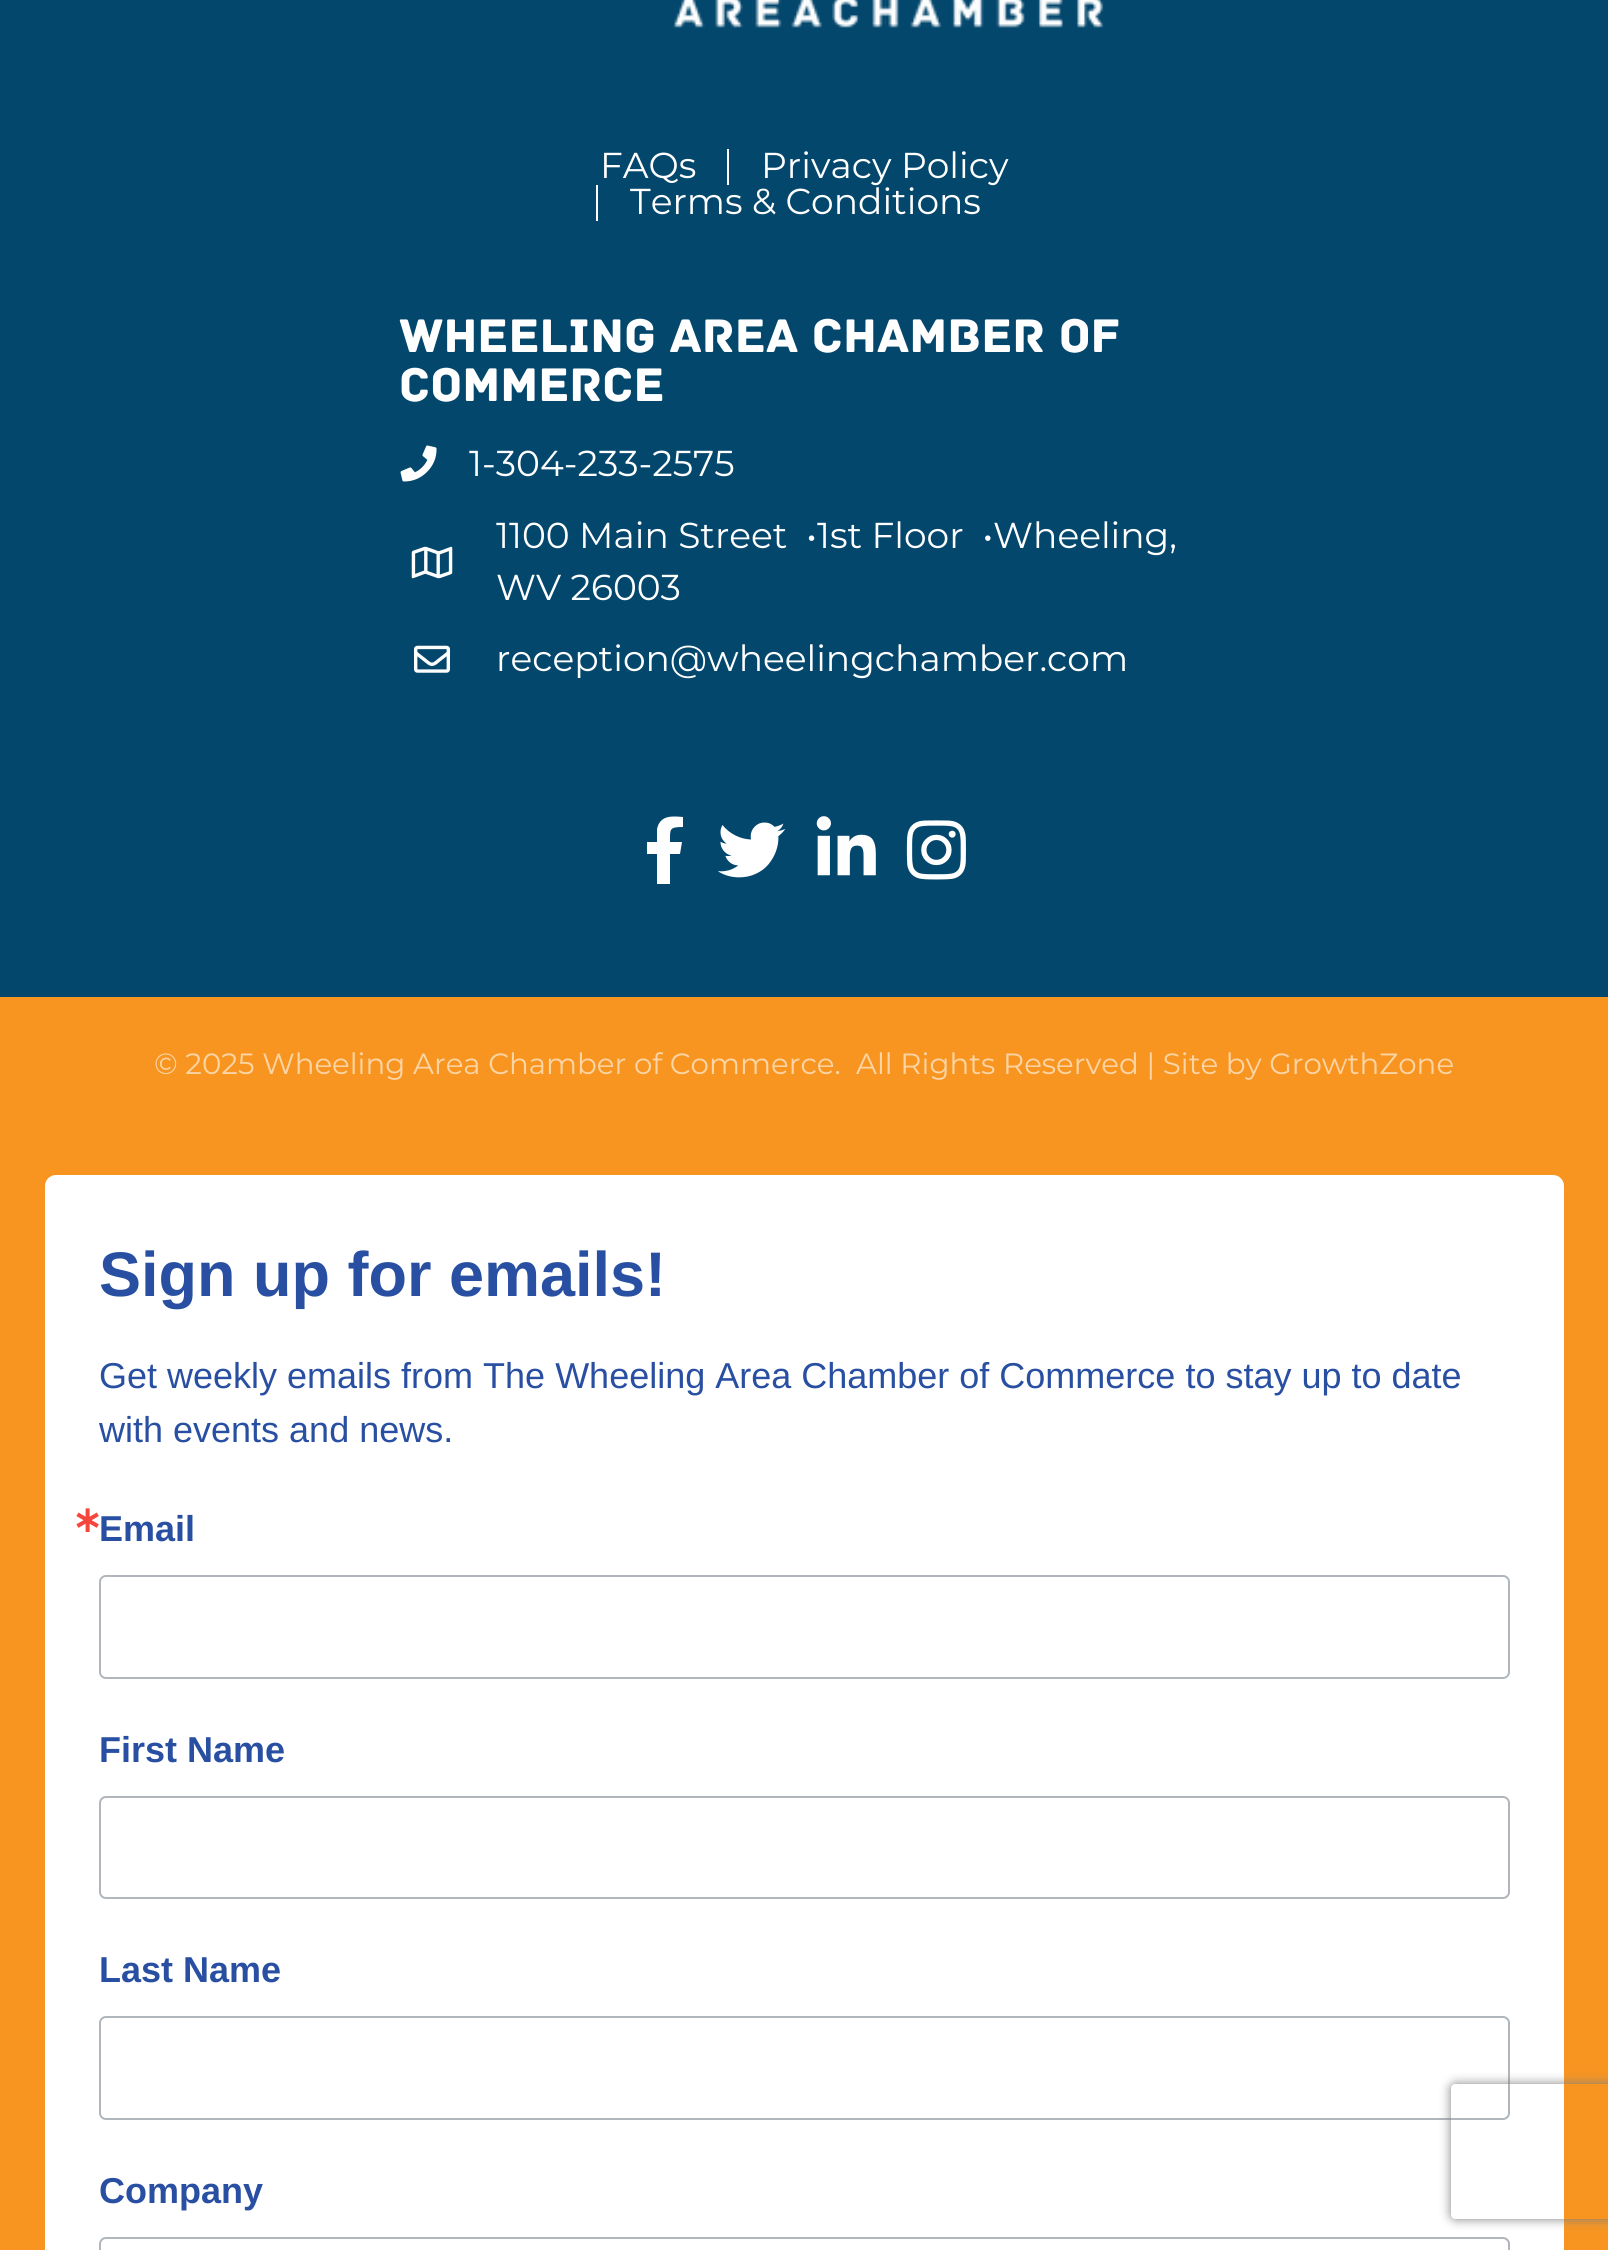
import math
import cairo


def use_color(cr, r, g, b):
  cr.set_source_rgb(r / 255, g / 255, b / 255)

def text(cr, x, y, s, family, size, color, bold=False, italic=False):
  cr.select_font_face(family, cairo.FONT_SLANT_ITALIC if italic else cairo.FONT_SLANT_NORMAL, cairo.FONT_WEIGHT_BOLD if bold else cairo.FONT_WEIGHT_NORMAL)
  cr.set_font_size(size)
  use_color(cr, *color)
  cr.move_to(x, y)
  cr.show_text(s)

def box(cr, x, y, w, h, *color):
  use_color(cr, *color)
  cr.rectangle(x, y, w, h)
  cr.fill()

def round_rect(cr, x, y, w, h, r):
  cr.new_sub_path()
  for i, (u, v) in enumerate([(x + w - r, y + h - r), (x + r, y + h - r), (x + r, y + r), (x + w - r, y + r)]):
    cr.arc(u, v, r, i * math.pi / 2, (i + 1) * math.pi / 2)
  cr.close_path()

def shadow(cr, x, y, w, h, r, blur, alpha):
  cr.push_group_with_content(cairo.CONTENT_ALPHA)
  cr.set_operator(cairo.OPERATOR_SOURCE)
  for i in range(15, -16, -2):
    e = blur * i / 6
    if min(w, h) + 2 * e > 0:
      cr.set_source_rgba(0, 0, 0, alpha * math.erfc((i - 1) / 8.5) / 2)
      round_rect(cr, x - e, y - e, w + 2 * e, h + 2 * e, max(0, min(r + e + blur * .6, min(w, h) / 2 + e)))
      cr.fill()
  cr.mask(cr.pop_group())

def picture(cr, path, x, y, w, h):
  cr.save()
  cr.set_source_surface(cairo.ImageSurface.create_from_png(path), x, y)
  cr.rectangle(x, y, w, h)
  cr.fill()
  cr.restore()

def draw(cr):
  use_color(cr, 4, 71, 109)
  cr.paint()
  picture(cr, "img_01.png", 673, 0, 431, 28)
  box(cr, 727, 149, 2, 36, 255, 255, 255)
  box(cr, 596, 185, 2, 36, 255, 255, 255)
  picture(cr, "img_02.png", 400, 445, 37, 37)
  picture(cr, "img_03.png", 411, 546, 42, 33)
  picture(cr, "img_04.png", 414, 645, 36, 28)
  cr.new_path()
  cr.move_to(680, 854)
  cr.line_to(670, 854)
  cr.line_to(670, 884)
  cr.line_to(657, 884)
  cr.line_to(657, 854)
  cr.line_to(647, 854)
  cr.line_to(647, 842)
  cr.line_to(657, 842)
  cr.line_to(657, 829)
  cr.curve_to(660, 815, 672, 816, 683, 817)
  cr.line_to(683, 827)
  cr.curve_to(669, 827, 670, 829, 670, 842)
  cr.line_to(682, 842)
  cr.close_path()
  cr.fill()
  picture(cr, "img_05.png", 718, 822, 68, 56)
  picture(cr, "img_06.png", 816, 816, 60, 60)
  picture(cr, "img_07.png", 906, 820, 60, 60)
  box(cr, 0, 997, 1608, 1253, 248, 149, 33)
  use_color(cr, 255, 255, 255)
  round_rect(cr, 45, 1175, 1519, 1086, 11)
  cr.fill()
  round_rect(cr, 100, 1576, 1409, 102, 6)
  use_color(cr, 176, 182, 187)
  cr.stroke()
  round_rect(cr, 100, 1797, 1409, 101, 6)
  cr.stroke()
  round_rect(cr, 100, 2017, 1409, 102, 6)
  cr.stroke()
  round_rect(cr, 100, 2238, 1409, 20, 6)
  cr.stroke()
  cr.save()
  cr.set_fill_rule(cairo.FILL_RULE_EVEN_ODD)
  cr.new_path()
  cr.move_to(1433, 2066)
  cr.line_to(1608, 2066)
  cr.line_to(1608, 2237)
  cr.line_to(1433, 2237)
  cr.close_path()
  cr.move_to(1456, 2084)
  cr.line_to(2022, 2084)
  cr.curve_to(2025, 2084, 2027, 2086, 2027, 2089)
  cr.line_to(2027, 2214)
  cr.curve_to(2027, 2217, 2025, 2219, 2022, 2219)
  cr.line_to(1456, 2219)
  cr.curve_to(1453, 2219, 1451, 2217, 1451, 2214)
  cr.line_to(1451, 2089)
  cr.curve_to(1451, 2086, 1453, 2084, 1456, 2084)
  cr.close_path()
  cr.clip()
  use_color(cr, 128, 128, 128)
  shadow(cr, 1451, 2084, 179, 135, 5, 5.5, 1)
  cr.restore()
  text(cr, 600, 178, "FAQs", "Montserrat", 36, (255, 255, 255))
  text(cr, 761, 178, "Privacy Policy", "Montserrat", 36, (255, 255, 255))
  text(cr, 630, 214, "Terms & Conditions", "Montserrat", 36, (255, 255, 255))
  text(cr, 399, 352, "Wheeling Area Chamber of", "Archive", 49.5, (255, 255, 255))
  text(cr, 399, 401, "Commerce", "Archive", 49.5, (255, 255, 255))
  text(cr, 469, 476, "1-304-233-2575", "Montserrat", 36, (255, 255, 255))
  text(cr, 496, 548, "1100 Main Street  •1st Floor  •Wheeling,", "Montserrat", 36, (255, 255, 255))
  text(cr, 496, 600, "WV 26003", "Montserrat", 36, (255, 255, 255))
  text(cr, 496, 671, "reception@wheelingchamber.com", "Montserrat", 36, (255, 255, 255))
  text(cr, 154, 1074, "© 2025 Wheeling Area Chamber of Commerce.", "Montserrat", 29.25, (252, 213, 166))
  text(cr, 856, 1074, "All Rights Reserved | Site by GrowthZone", "Montserrat", 29.25, (252, 213, 166))
  text(cr, 99, 1296, "Sign up for emails!", "Liberation Sans", 63, (40, 79, 161), bold=True)
  text(cr, 99, 1388, "Get weekly emails from The Wheeling Area Chamber of Commerce to stay up to date", "Liberation Sans", 36, (40, 79, 161))
  text(cr, 99, 1442, "with events and news.", "Liberation Sans", 36, (40, 79, 161))
  text(cr, 72, 1532, "∗", "DejaVu Sans", 36, (245, 70, 59), bold=True)
  text(cr, 99, 1541, "Email", "Liberation Sans", 36, (40, 79, 161), bold=True)
  text(cr, 99, 1762, "First Name", "Liberation Sans", 36, (40, 79, 161), bold=True)
  text(cr, 99, 1982, "Last Name", "Liberation Sans", 36, (40, 79, 161), bold=True)
  text(cr, 99, 2203, "Company", "Liberation Sans", 36, (40, 79, 161), bold=True)


surface = cairo.ImageSurface(cairo.FORMAT_RGB24, 1608, 2250)
cr = cairo.Context(surface)
options = cairo.FontOptions()
options.set_hint_metrics(cairo.HINT_METRICS_OFF)
options.set_hint_style(cairo.HINT_STYLE_NONE)
cr.set_font_options(options)
cr.set_miter_limit(4)
draw(cr)
surface.write_to_png("out.png")
